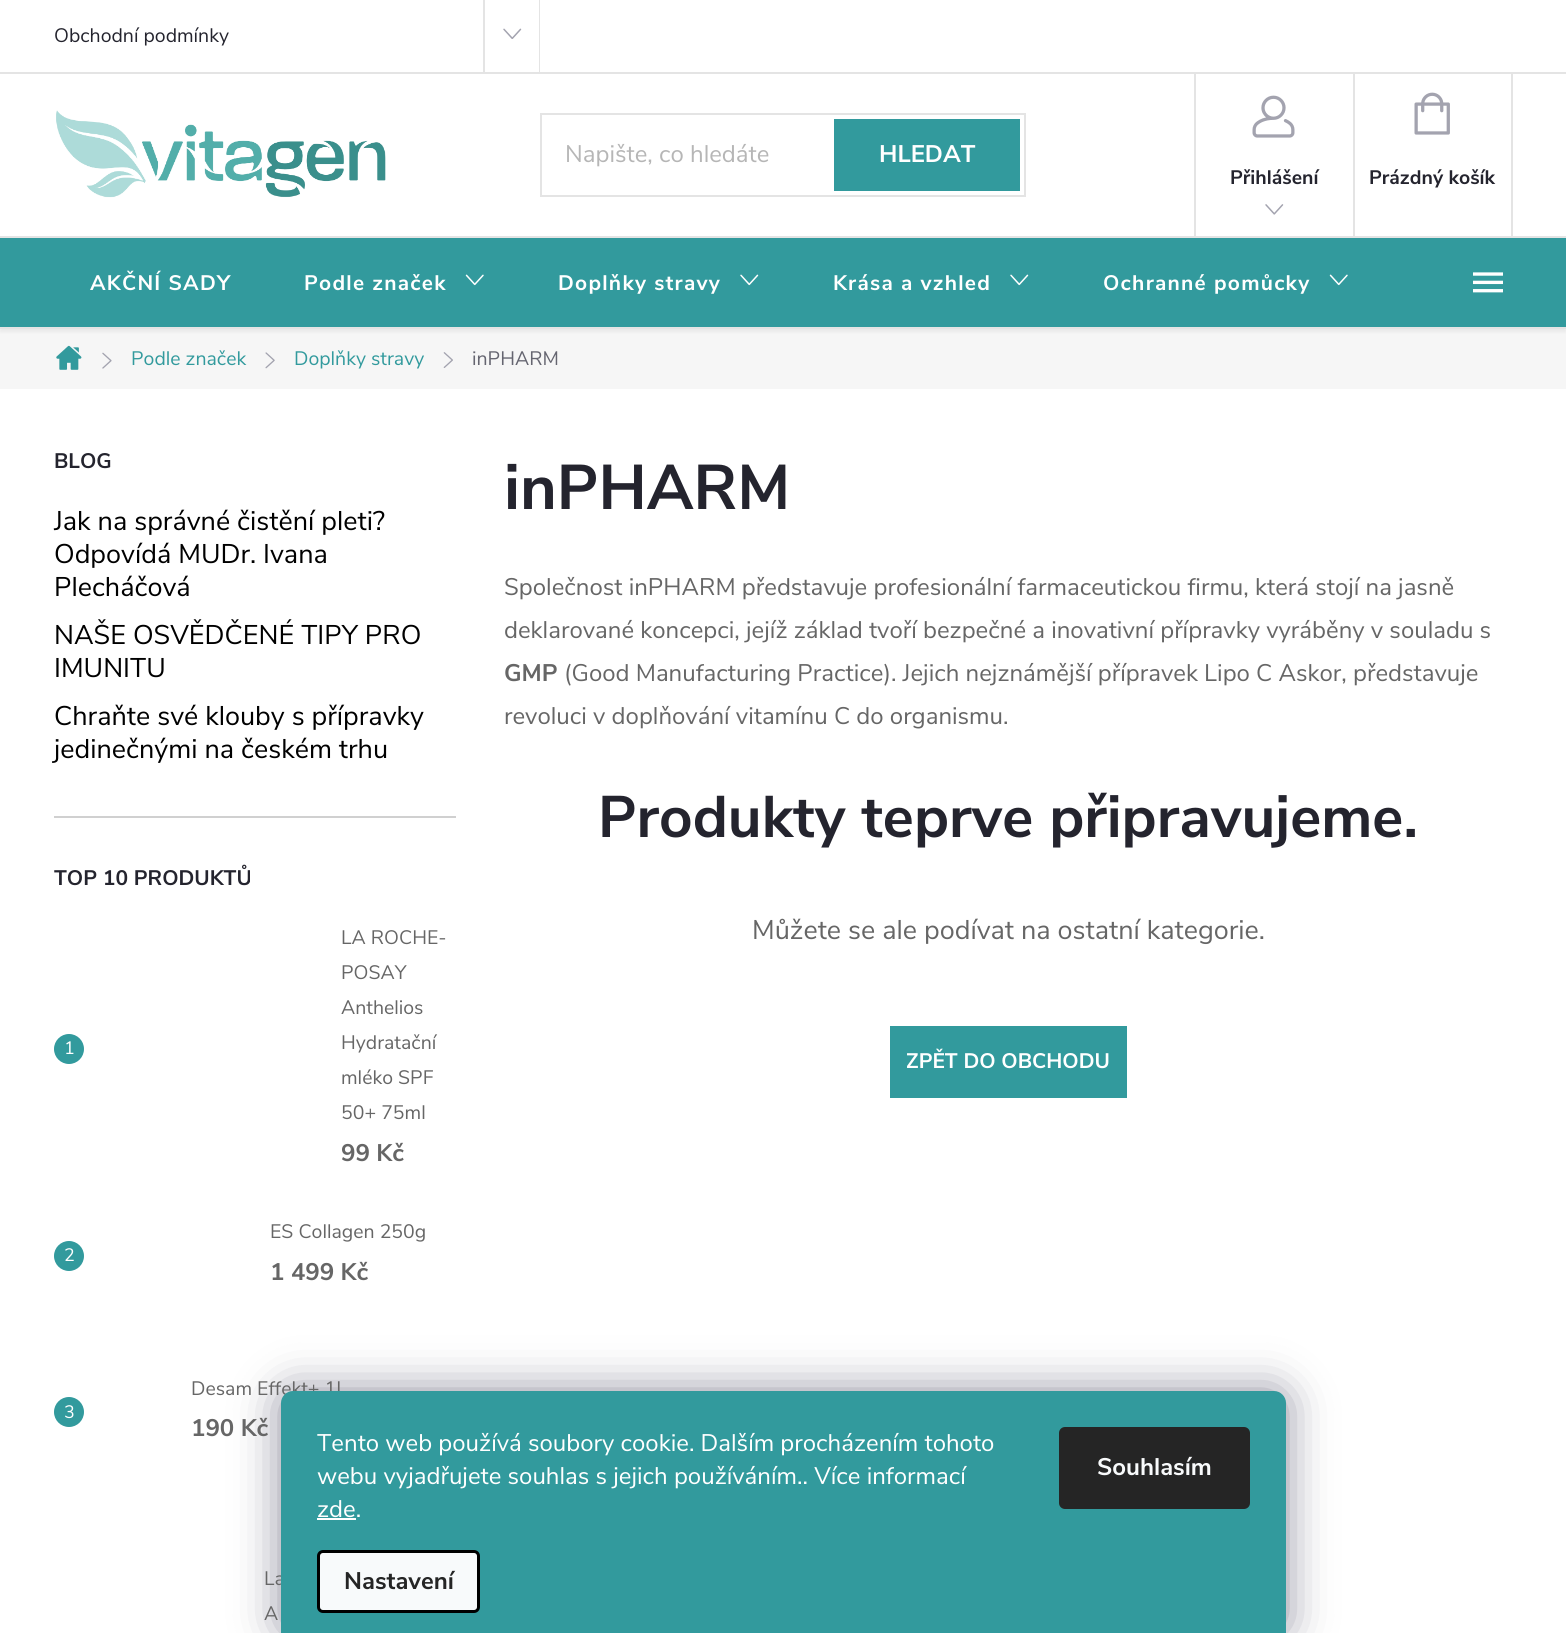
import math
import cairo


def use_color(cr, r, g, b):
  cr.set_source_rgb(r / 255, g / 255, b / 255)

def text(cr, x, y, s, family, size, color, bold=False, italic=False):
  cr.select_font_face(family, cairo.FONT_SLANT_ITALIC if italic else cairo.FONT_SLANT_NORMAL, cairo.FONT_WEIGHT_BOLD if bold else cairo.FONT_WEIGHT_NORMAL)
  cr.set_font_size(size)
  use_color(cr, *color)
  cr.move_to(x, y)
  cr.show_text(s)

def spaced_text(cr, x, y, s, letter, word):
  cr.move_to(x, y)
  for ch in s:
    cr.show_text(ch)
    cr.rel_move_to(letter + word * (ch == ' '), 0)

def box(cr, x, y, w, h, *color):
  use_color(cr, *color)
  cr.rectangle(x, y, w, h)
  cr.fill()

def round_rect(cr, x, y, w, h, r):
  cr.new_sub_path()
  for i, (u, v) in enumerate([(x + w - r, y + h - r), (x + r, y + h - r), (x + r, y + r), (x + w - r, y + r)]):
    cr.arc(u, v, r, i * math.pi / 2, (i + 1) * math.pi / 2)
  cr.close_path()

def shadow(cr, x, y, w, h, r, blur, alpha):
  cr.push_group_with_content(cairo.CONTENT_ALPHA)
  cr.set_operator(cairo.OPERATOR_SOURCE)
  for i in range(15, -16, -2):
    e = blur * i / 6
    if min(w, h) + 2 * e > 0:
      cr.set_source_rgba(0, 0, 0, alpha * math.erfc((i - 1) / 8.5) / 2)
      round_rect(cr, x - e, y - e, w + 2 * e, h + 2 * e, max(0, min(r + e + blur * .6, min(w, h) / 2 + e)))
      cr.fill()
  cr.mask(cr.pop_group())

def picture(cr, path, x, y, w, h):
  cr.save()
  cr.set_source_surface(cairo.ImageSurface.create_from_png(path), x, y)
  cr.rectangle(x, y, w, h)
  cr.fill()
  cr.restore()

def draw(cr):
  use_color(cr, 255, 255, 255)
  cr.paint()
  box(cr, 0, 72, 1566, 2, 228, 228, 228)
  box(cr, 539, 0, 1, 72, 228, 228, 228)
  box(cr, 483, 0, 2, 72, 228, 228, 228)
  picture(cr, "img_01.png", 503, 28, 19, 11)
  picture(cr, "img_02.png", 56, 110, 330, 88)
  cr.rectangle(541, 114, 484, 82)
  cr.stroke()
  box(cr, 834, 119, 186, 72, 50, 154, 157)
  box(cr, 1194, 74, 2, 162, 228, 228, 228)
  picture(cr, "img_03.png", 1252, 95, 43, 43)
  picture(cr, "img_04.png", 1265, 204, 19, 11)
  box(cr, 1511, 74, 2, 162, 228, 228, 228)
  box(cr, 1353, 74, 2, 162, 228, 228, 228)
  picture(cr, "img_05.png", 1414, 92, 36, 43)
  box(cr, 0, 329, 1566, 60, 246, 246, 246)
  use_color(cr, 0, 0, 0)
  shadow(cr, 0, 239, 1566, 93, 0, 1.5, 0.05)
  box(cr, 0, 238, 1566, 89, 50, 154, 157)
  picture(cr, "img_06.png", 465, 274, 19, 12)
  picture(cr, "img_07.png", 740, 274, 19, 12)
  picture(cr, "img_07.png", 1010, 274, 19, 12)
  picture(cr, "img_06.png", 1329, 274, 19, 12)
  picture(cr, "img_08.png", 1473, 272, 30, 21)
  box(cr, 0, 236, 1566, 2, 228, 228, 228)
  box(cr, 0, 327, 1566, 2, 228, 228, 228)
  picture(cr, "img_09.png", 56, 345, 26, 25)
  picture(cr, "img_10.png", 102, 352, 10, 17)
  picture(cr, "img_11.png", 265, 352, 10, 17)
  picture(cr, "img_12.png", 443, 352, 10, 16)
  box(cr, 54, 816, 402, 2, 208, 208, 208)
  use_color(cr, 50, 154, 157)
  cr.arc(69, 1049, 15, 0, 2 * math.pi)
  cr.fill()
  cr.arc(69, 1256, 15, 0, 2 * math.pi)
  cr.fill()
  cr.arc(69, 1412, 15, 0, 2 * math.pi)
  cr.fill()
  box(cr, 890, 1026, 237, 72, 50, 154, 157)
  use_color(cr, 27, 25, 57)
  shadow(cr, 281, 1391, 1005, 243, 12, 22.5, 0.5)
  text(cr, 54, 42, "Obchodní podmínky", "Nunito Sans", 19.5, (36, 36, 46))
  text(cr, 565, 162, "Napište, co hledáte", "Nunito Sans", 24, (182, 182, 182))
  text(cr, 879, 162, "HLEDAT", "Nunito Sans", 24, (255, 255, 255), bold=True)
  text(cr, 1230, 184, "Přihlášení", "Nunito Sans", 19.5, (36, 36, 46), bold=True)
  text(cr, 1369, 184, "Prázdný košík", "Nunito Sans", 19.5, (36, 36, 46), bold=True)
  cr.set_font_size(21)
  use_color(cr, 255, 255, 255)
  spaced_text(cr, 90, 290, "AKČNÍ SADY", 1.25, 0)
  spaced_text(cr, 304, 290, "Podle značek", 1.25, 0)
  spaced_text(cr, 558, 290, "Doplňky stravy", 1.25, 0)
  spaced_text(cr, 833, 290, "Krása a vzhled", 1.25, 0)
  spaced_text(cr, 1103, 290, "Ochranné pomůcky", 1.25, 0)
  text(cr, 131, 365, "Podle značek", "Nunito Sans", 19.5, (50, 154, 157))
  text(cr, 294, 365, "Doplňky stravy", "Nunito Sans", 19.5, (50, 154, 157))
  text(cr, 472, 365, "inPHARM", "Nunito Sans", 19.5, (101, 101, 112))
  text(cr, 54, 468, "BLOG", "Nunito Sans", 21, (36, 36, 46), bold=True)
  text(cr, 54, 530, "Jak na správné čistění pleti?", "Nunito Sans", 27, (0, 0, 0))
  text(cr, 54, 563, "Odpovídá MUDr. Ivana", "Nunito Sans", 27, (0, 0, 0))
  text(cr, 54, 596, "Plecháčová", "Nunito Sans", 27, (0, 0, 0))
  text(cr, 54, 644, "NAŠE OSVĚDČENÉ TIPY PRO", "Nunito Sans", 27, (0, 0, 0))
  text(cr, 54, 677, "IMUNITU", "Nunito Sans", 27, (0, 0, 0))
  text(cr, 54, 725, "Chraňte své klouby s přípravky", "Nunito Sans", 27, (0, 0, 0))
  text(cr, 54, 758, "jedinečnými na českém trhu", "Nunito Sans", 27, (0, 0, 0))
  text(cr, 54, 885, "TOP 10 PRODUKTŮ", "Nunito Sans", 21, (36, 36, 46), bold=True)
  text(cr, 64, 1054, "1", "Nunito Sans", 18, (255, 255, 255))
  text(cr, 341, 944, "LA ROCHE-", "Nunito Sans", 19.5, (102, 102, 102))
  text(cr, 341, 979, "POSAY", "Nunito Sans", 19.5, (102, 102, 102))
  text(cr, 341, 1014, "Anthelios", "Nunito Sans", 19.5, (102, 102, 102))
  text(cr, 341, 1049, "Hydratační", "Nunito Sans", 19.5, (102, 102, 102))
  text(cr, 341, 1084, "mléko SPF", "Nunito Sans", 19.5, (102, 102, 102))
  text(cr, 341, 1119, "50+ 75ml", "Nunito Sans", 19.5, (102, 102, 102))
  text(cr, 341, 1161, "99 Kč", "Nunito Sans", 24, (102, 102, 102), bold=True)
  text(cr, 64, 1261, "2", "Nunito Sans", 18, (255, 255, 255))
  text(cr, 270, 1238, "ES Collagen 250g", "Nunito Sans", 19.5, (102, 102, 102))
  text(cr, 270, 1280, "1 499 Kč", "Nunito Sans", 24, (102, 102, 102), bold=True)
  text(cr, 64, 1418, "3", "Nunito Sans", 18, (255, 255, 255))
  text(cr, 191, 1395, "Desam Effekt+ 1L", "Nunito Sans", 19.5, (102, 102, 102))
  text(cr, 191, 1436, "190 Kč", "Nunito Sans", 24, (102, 102, 102), bold=True)
  text(cr, 264, 1585, "La", "Nunito Sans", 19.5, (102, 102, 102))
  text(cr, 264, 1620, "A", "Nunito Sans", 19.5, (102, 102, 102))
  text(cr, 504, 509, "inPHARM", "Nunito Sans", 63, (36, 36, 46), bold=True)
  text(cr, 504, 595, "Společnost inPHARM představuje profesionální farmaceutickou firmu, která stojí na jasně", "Nunito Sans", 24, (102, 102, 102))
  text(cr, 504, 638, "deklarované koncepci, jejíž základ tvoří bezpečné a inovativní přípravky vyráběny v souladu s", "Nunito Sans", 24, (102, 102, 102))
  text(cr, 504, 681, "GMP", "Nunito Sans", 24, (102, 102, 102), bold=True)
  text(cr, 564, 681, "(Good Manufacturing Practice). Jejich nejznámější přípravek Lipo C Askor, představuje", "Nunito Sans", 24, (102, 102, 102))
  text(cr, 504, 724, "revoluci v doplňování vitamínu C do organismu.", "Nunito Sans", 24, (102, 102, 102))
  text(cr, 598, 837, "Produkty teprve připravujeme.", "Nunito Sans", 58.5, (36, 36, 46), bold=True)
  text(cr, 752, 939, "Můžete se ale podívat na ostatní kategorie.", "Nunito Sans", 27, (102, 102, 102))
  text(cr, 906, 1068, "ZPĚT DO OBCHODU", "Nunito Sans", 21, (255, 255, 255), bold=True)
  use_color(cr, 50, 154, 157)
  cr.new_path()
  cr.move_to(293, 1391)
  cr.line_to(1274, 1391)
  cr.curve_to(1280.5, 1391, 1286, 1396.5, 1286, 1403)
  cr.line_to(1286, 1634)
  cr.line_to(281, 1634)
  cr.line_to(281, 1403)
  cr.curve_to(281, 1396.5, 286.5, 1391, 293, 1391)
  cr.close_path()
  cr.fill()
  text(cr, 317, 1451, "Tento web používá soubory cookie. Dalším procházením tohoto", "Nunito Sans", 24, (255, 255, 255))
  text(cr, 317, 1484, "webu vyjadřujete souhlas s jejich používáním.. Více informací", "Nunito Sans", 24, (255, 255, 255))
  text(cr, 317, 1517, "zde.", "Nunito Sans", 24, (255, 255, 255))
  box(cr, 317, 1518, 39, 2, 255, 255, 255)
  use_color(cr, 248, 250, 251)
  round_rect(cr, 318.5, 1551.5, 160, 60, 4.5)
  cr.fill_preserve()
  use_color(cr, 0, 0, 0)
  cr.set_line_width(3)
  cr.stroke()
  text(cr, 344, 1589, "Nastavení", "Nunito Sans", 24, (37, 37, 37), bold=True)
  round_rect(cr, 1059, 1427, 191, 82, 6)
  cr.fill()
  text(cr, 1097, 1475, "Souhlasím", "Nunito Sans", 24, (248, 250, 251), bold=True)


surface = cairo.ImageSurface(cairo.FORMAT_RGB24, 1566, 1633)
cr = cairo.Context(surface)
options = cairo.FontOptions()
options.set_hint_metrics(cairo.HINT_METRICS_OFF)
options.set_hint_style(cairo.HINT_STYLE_NONE)
cr.set_font_options(options)
cr.set_miter_limit(4)
draw(cr)
surface.write_to_png("out.png")
